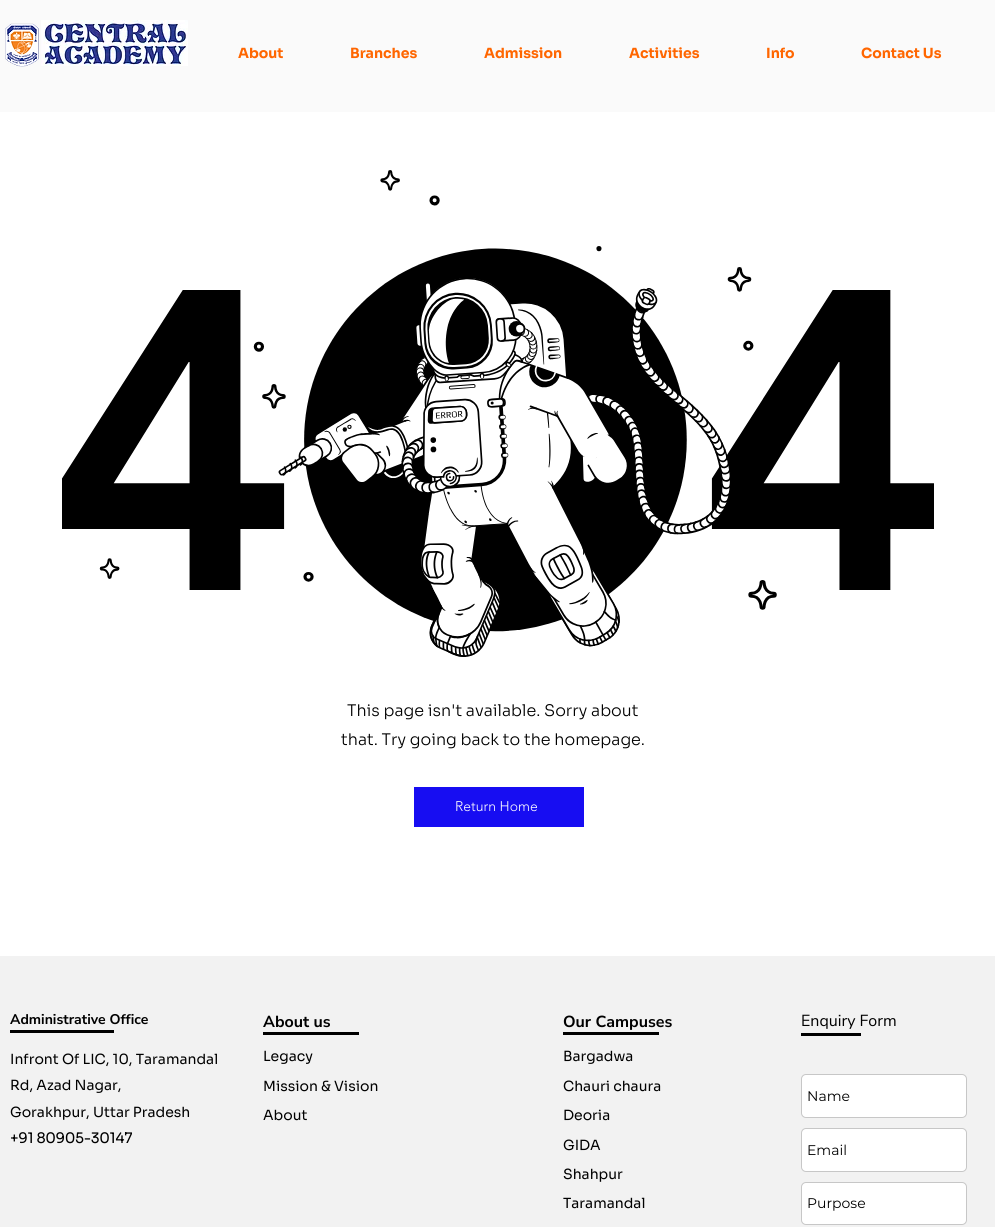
import math
import cairo


def use_color(cr, r, g, b):
  cr.set_source_rgb(r / 255, g / 255, b / 255)

def text(cr, x, y, s, family, size, color, bold=False, italic=False):
  cr.select_font_face(family, cairo.FONT_SLANT_ITALIC if italic else cairo.FONT_SLANT_NORMAL, cairo.FONT_WEIGHT_BOLD if bold else cairo.FONT_WEIGHT_NORMAL)
  cr.set_font_size(size)
  use_color(cr, *color)
  cr.move_to(x, y)
  cr.show_text(s)

def box(cr, x, y, w, h, *color):
  use_color(cr, *color)
  cr.rectangle(x, y, w, h)
  cr.fill()

def round_rect(cr, x, y, w, h, r):
  cr.new_sub_path()
  for i, (u, v) in enumerate([(x + w - r, y + h - r), (x + r, y + h - r), (x + r, y + r), (x + w - r, y + r)]):
    cr.arc(u, v, r, i * math.pi / 2, (i + 1) * math.pi / 2)
  cr.close_path()

def picture(cr, path, x, y, w, h):
  cr.save()
  cr.set_source_surface(cairo.ImageSurface.create_from_png(path), x, y)
  cr.rectangle(x, y, w, h)
  cr.fill()
  cr.restore()

def draw(cr):
  use_color(cr, 255, 255, 255)
  cr.paint()
  box(cr, 0, 0, 995, 112, 250, 250, 250)
  picture(cr, "img_01.png", 5, 23, 34, 44)
  picture(cr, "img_02.png", 41, 20, 147, 46)
  picture(cr, "img_03.png", 62, 170, 872, 487)
  box(cr, 414, 787, 170, 40, 23, 13, 242)
  box(cr, 0, 956, 995, 271, 242, 242, 242)
  box(cr, 10, 1030, 104, 3, 0, 0, 0)
  box(cr, 263, 1032, 96, 3, 0, 0, 0)
  box(cr, 563, 1032, 96, 3, 0, 0, 0)
  box(cr, 801, 1033, 60, 3, 0, 0, 0)
  use_color(cr, 255, 255, 255)
  round_rect(cr, 801.5, 1074.5, 165, 43, 4.5)
  cr.fill_preserve()
  use_color(cr, 199, 199, 199)
  cr.set_line_width(1)
  cr.stroke()
  use_color(cr, 255, 255, 255)
  round_rect(cr, 801.5, 1128.5, 165, 43, 4.5)
  cr.fill_preserve()
  use_color(cr, 199, 199, 199)
  cr.stroke()
  use_color(cr, 255, 255, 255)
  round_rect(cr, 801.5, 1182.5, 165, 42, 4.5)
  cr.fill_preserve()
  use_color(cr, 199, 199, 199)
  cr.stroke()
  text(cr, 238, 58, "About", "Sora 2", 14, (255, 102, 0), bold=True)
  text(cr, 350, 58, "Branches", "Sora 2", 14, (255, 102, 0), bold=True)
  text(cr, 484, 58, "Admission", "Sora 2", 14, (255, 102, 0), bold=True)
  text(cr, 629, 58, "Activities", "Sora 2", 14, (255, 102, 0), bold=True)
  text(cr, 766, 58, "Info", "Sora 2", 14, (255, 102, 0), bold=True)
  text(cr, 861, 58, "Contact Us", "Sora 2", 14, (255, 102, 0), bold=True)
  text(cr, 347, 716, "This page isn't available. Sorry about", "Sora Light", 16, (0, 0, 0))
  text(cr, 341, 745, "that. Try going back to the homepage.", "Sora Light", 16, (0, 0, 0))
  text(cr, 455, 811, "Return Home", "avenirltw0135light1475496 Light", 14, (255, 255, 255))
  text(cr, 10, 1024, "Administrative Office", "Nunito Sans", 14, (0, 0, 0), bold=True)
  text(cr, 10, 1064, "Infront Of LIC, 10, Taramandal", "Sora", 14, (0, 0, 0))
  text(cr, 10, 1090, "Rd, Azad Nagar,", "Sora", 14, (0, 0, 0))
  text(cr, 10, 1117, "Gorakhpur, Uttar Pradesh", "Sora", 14, (0, 0, 0))
  text(cr, 10, 1143, "+91 80905-30147", "Sora", 14, (0, 0, 0), bold=True)
  text(cr, 263, 1027, "About us", "Nunito Sans", 16, (0, 0, 0), bold=True)
  text(cr, 563, 1027, "Our Campuses", "Nunito Sans", 16, (0, 0, 0), bold=True)
  text(cr, 263, 1061, "Legacy", "Sora", 14, (0, 0, 0))
  text(cr, 263, 1091, "Mission & Vision", "Sora", 14, (0, 0, 0))
  text(cr, 263, 1120, "About", "Sora", 14, (0, 0, 0))
  text(cr, 563, 1061, "Bargadwa", "Sora", 14, (0, 0, 0))
  text(cr, 563, 1091, "Chauri chaura", "Sora", 14, (0, 0, 0))
  text(cr, 563, 1120, "Deoria", "Sora", 14, (0, 0, 0))
  text(cr, 563, 1150, "GIDA", "Sora", 14, (0, 0, 0))
  text(cr, 563, 1179, "Shahpur", "Sora", 14, (0, 0, 0))
  text(cr, 563, 1208, "Taramandal", "Sora", 14, (0, 0, 0))
  text(cr, 801, 1026, "Enquiry Form", "Nunito Sans", 16, (0, 0, 0))
  text(cr, 807, 1101, "Name", "Montserrat", 14, (0, 0, 0))
  text(cr, 807, 1155, "Email", "Montserrat", 14, (0, 0, 0))
  text(cr, 807, 1208, "Purpose", "Montserrat", 14, (0, 0, 0))


surface = cairo.ImageSurface(cairo.FORMAT_RGB24, 995, 1227)
cr = cairo.Context(surface)
options = cairo.FontOptions()
options.set_hint_metrics(cairo.HINT_METRICS_OFF)
options.set_hint_style(cairo.HINT_STYLE_NONE)
cr.set_font_options(options)
cr.set_miter_limit(4)
draw(cr)
surface.write_to_png("out.png")
